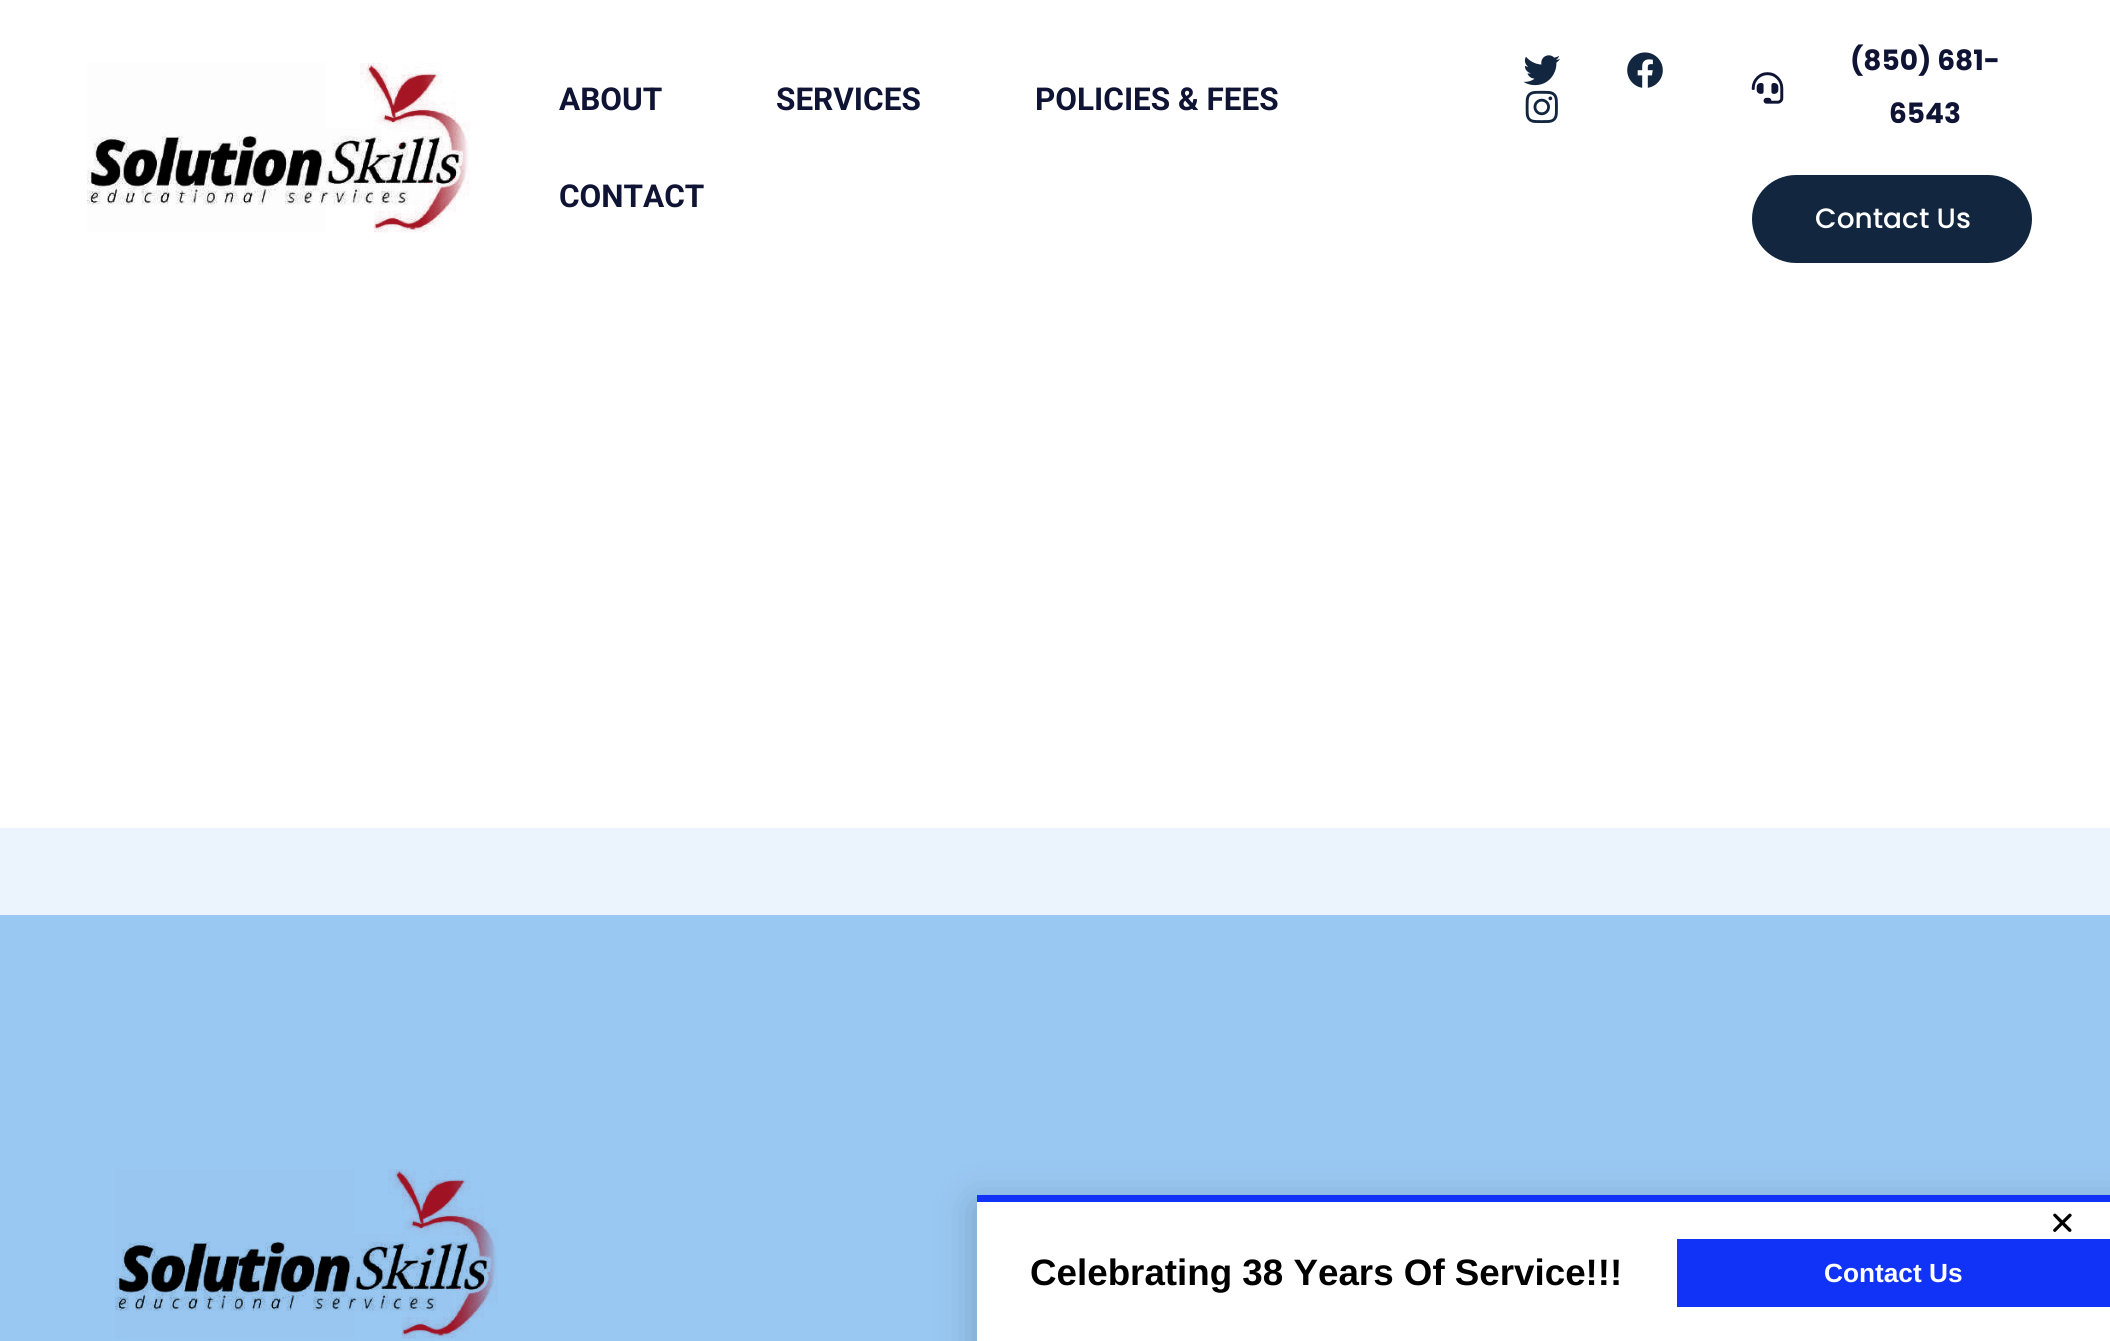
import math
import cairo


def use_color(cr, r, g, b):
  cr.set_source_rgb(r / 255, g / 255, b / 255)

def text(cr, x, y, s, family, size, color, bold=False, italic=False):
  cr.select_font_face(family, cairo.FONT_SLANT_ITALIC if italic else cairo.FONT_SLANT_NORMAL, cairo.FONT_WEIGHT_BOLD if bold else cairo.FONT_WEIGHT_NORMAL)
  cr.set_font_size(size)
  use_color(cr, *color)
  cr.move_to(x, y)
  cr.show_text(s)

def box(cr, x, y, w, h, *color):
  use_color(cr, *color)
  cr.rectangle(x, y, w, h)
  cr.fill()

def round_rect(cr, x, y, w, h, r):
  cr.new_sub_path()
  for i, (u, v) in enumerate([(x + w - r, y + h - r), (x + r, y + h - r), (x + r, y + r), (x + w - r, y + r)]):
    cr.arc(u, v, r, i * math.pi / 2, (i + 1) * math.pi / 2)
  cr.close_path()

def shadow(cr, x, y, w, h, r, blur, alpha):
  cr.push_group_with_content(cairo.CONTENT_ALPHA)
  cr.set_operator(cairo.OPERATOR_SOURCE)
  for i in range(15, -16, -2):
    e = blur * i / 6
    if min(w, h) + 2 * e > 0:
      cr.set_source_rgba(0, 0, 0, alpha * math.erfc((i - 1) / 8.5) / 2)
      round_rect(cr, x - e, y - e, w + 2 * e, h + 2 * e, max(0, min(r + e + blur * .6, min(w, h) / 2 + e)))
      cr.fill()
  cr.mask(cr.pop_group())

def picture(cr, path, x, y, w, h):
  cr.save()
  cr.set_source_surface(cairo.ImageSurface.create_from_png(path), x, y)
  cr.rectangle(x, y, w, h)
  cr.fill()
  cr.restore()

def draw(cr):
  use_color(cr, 255, 255, 255)
  cr.paint()
  picture(cr, "img_01.png", 87, 63, 383, 170)
  picture(cr, "img_02.png", 1523, 55, 37, 31)
  picture(cr, "img_03.png", 1627, 52, 36, 36)
  picture(cr, "img_04.png", 1525, 90, 33, 34)
  picture(cr, "img_05.png", 1751, 72, 33, 32)
  use_color(cr, 18, 38, 64)
  round_rect(cr, 1752, 175, 280, 88, 44)
  cr.fill()
  box(cr, 0, 915, 2110, 426, 153, 200, 242)
  box(cr, 0, 828, 2110, 87, 235, 244, 252)
  picture(cr, "img_06.png", 115, 1169, 383, 170)
  use_color(cr, 0, 0, 0)
  shadow(cr, 975, 1204, 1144, 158, 0, 20, 0.2)
  box(cr, 977, 1202, 1133, 139, 255, 255, 255)
  picture(cr, "img_07.png", 2053, 1213, 19, 19)
  box(cr, 977, 1195, 1133, 7, 17, 51, 247)
  box(cr, 1677, 1239, 433, 68, 17, 51, 247)
  text(cr, 559, 110, "ABOUT", "Roboto", 31.5, (15, 20, 52), bold=True)
  text(cr, 776, 110, "SERVICES", "Roboto", 31.5, (15, 20, 52), bold=True)
  text(cr, 1035, 110, "POLICIES & FEES", "Roboto", 31.5, (15, 20, 52), bold=True)
  text(cr, 559, 207, "CONTACT", "Roboto", 31.5, (15, 20, 52), bold=True)
  text(cr, 1850, 70, "(850) 681-", "Poppins", 28, (15, 20, 52), bold=True)
  text(cr, 1889, 123, "6543", "Poppins", 28, (15, 20, 52), bold=True)
  text(cr, 1815, 228, "Contact Us", "Poppins Medium", 28, (255, 255, 255))
  text(cr, 1030, 1285, "Celebrating 38 Years Of Service!!!", "Liberation Sans", 36.75, (0, 0, 0), bold=True)
  text(cr, 1824, 1282, "Contact Us", "Liberation Sans", 26.25, (255, 255, 255), bold=True)


surface = cairo.ImageSurface(cairo.FORMAT_RGB24, 2110, 1341)
cr = cairo.Context(surface)
options = cairo.FontOptions()
options.set_hint_metrics(cairo.HINT_METRICS_OFF)
options.set_hint_style(cairo.HINT_STYLE_NONE)
cr.set_font_options(options)
cr.set_miter_limit(4)
draw(cr)
surface.write_to_png("out.png")
